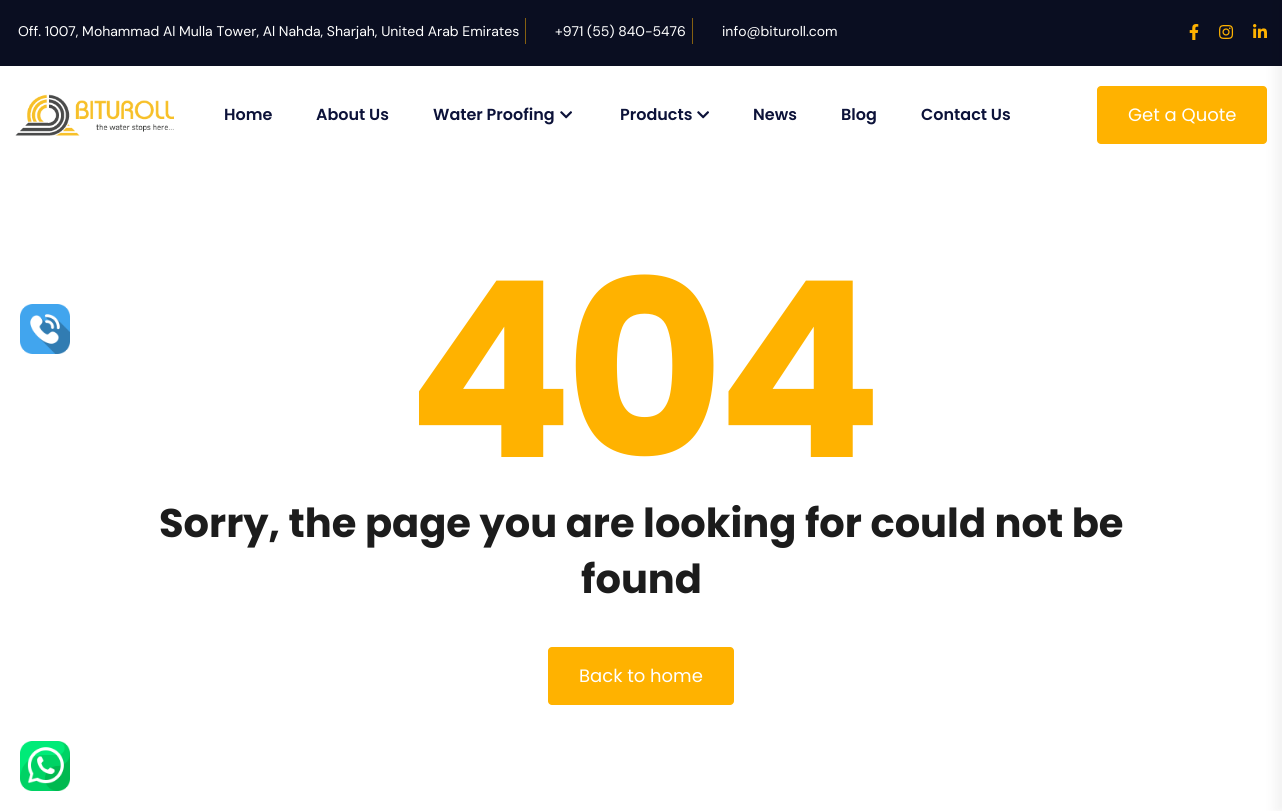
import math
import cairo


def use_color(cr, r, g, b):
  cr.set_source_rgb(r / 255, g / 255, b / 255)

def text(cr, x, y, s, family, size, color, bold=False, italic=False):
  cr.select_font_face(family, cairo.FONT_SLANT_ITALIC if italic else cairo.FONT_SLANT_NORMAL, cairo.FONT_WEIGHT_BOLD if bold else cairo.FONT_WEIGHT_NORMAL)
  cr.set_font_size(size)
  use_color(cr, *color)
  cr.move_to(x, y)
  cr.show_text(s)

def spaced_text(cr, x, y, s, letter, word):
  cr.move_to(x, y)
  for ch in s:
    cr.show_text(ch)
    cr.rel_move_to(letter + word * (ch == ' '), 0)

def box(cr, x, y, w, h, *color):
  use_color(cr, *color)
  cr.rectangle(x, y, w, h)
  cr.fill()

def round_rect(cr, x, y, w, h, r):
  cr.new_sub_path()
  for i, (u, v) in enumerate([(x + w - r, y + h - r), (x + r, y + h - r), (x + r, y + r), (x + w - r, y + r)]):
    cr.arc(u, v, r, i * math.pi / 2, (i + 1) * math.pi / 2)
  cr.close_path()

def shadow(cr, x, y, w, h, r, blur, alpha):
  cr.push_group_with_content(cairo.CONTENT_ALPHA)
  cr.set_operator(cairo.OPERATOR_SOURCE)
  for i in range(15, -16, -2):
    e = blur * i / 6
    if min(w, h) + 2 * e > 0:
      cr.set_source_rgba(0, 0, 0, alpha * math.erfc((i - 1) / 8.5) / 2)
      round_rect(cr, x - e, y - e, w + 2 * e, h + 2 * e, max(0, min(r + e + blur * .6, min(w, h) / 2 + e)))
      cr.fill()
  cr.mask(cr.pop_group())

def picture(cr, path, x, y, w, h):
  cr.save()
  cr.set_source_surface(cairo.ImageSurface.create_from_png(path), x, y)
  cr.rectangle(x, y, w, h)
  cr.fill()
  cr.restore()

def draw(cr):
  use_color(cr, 255, 255, 255)
  cr.paint()
  box(cr, 0, 0, 1282, 66, 10, 14, 33)
  box(cr, 525, 18, 1, 26, 133, 96, 17)
  box(cr, 692, 18, 1, 26, 133, 96, 17)
  picture(cr, "img_01.png", 1189, 24, 10, 16)
  picture(cr, "img_02.png", 1219, 25, 15, 14)
  picture(cr, "img_03.png", 1253, 24, 14, 14)
  picture(cr, "img_04.png", 15, 94, 159, 42)
  picture(cr, "img_05.png", 560, 111, 12, 8)
  picture(cr, "img_05.png", 697, 111, 12, 8)
  use_color(cr, 255, 178, 0)
  round_rect(cr, 1097, 86, 170, 58, 4)
  cr.fill()
  use_color(cr, 0, 0, 0)
  shadow(cr, 1276, 0, 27, 811, 0, 7, 0.06)
  picture(cr, "img_06.png", 20, 304, 50, 50)
  picture(cr, "img_07.png", 20, 741, 50, 50)
  use_color(cr, 255, 178, 0)
  round_rect(cr, 548, 647, 186, 58, 4)
  cr.fill()
  text(cr, 18, 36, "Off. 1007, Mohammad Al Mulla Tower, Al Nahda, Sharjah, United Arab Emirates", "DM Sans", 14, (255, 255, 255))
  text(cr, 555, 36, "+971 (55) 840-5476", "DM Sans", 14, (255, 255, 255))
  text(cr, 722, 36, "info@bituroll.com", "DM Sans", 14, (255, 255, 255))
  text(cr, 224, 120, "Home", "Poppins SemiBold", 16, (12, 18, 57))
  text(cr, 316, 120, "About Us", "Poppins SemiBold", 16, (12, 18, 57))
  text(cr, 433, 120, "Water Proofing", "Poppins SemiBold", 16, (12, 18, 57))
  text(cr, 620, 120, "Products", "Poppins SemiBold", 16, (12, 18, 57))
  text(cr, 753, 120, "News", "Poppins SemiBold", 16, (12, 18, 57))
  text(cr, 841, 120, "Blog", "Poppins SemiBold", 16, (12, 18, 57))
  text(cr, 921, 120, "Contact Us", "Poppins SemiBold", 16, (12, 18, 57))
  text(cr, 1128, 121, "Get a Quote", "Poppins", 18, (255, 255, 255))
  cr.select_font_face("Poppins", cairo.FONT_SLANT_NORMAL, cairo.FONT_WEIGHT_BOLD)
  cr.set_font_size(245)
  use_color(cr, 255, 178, 0)
  spaced_text(cr, 407, 457, "404", -8, 0)
  text(cr, 159, 537, "Sorry, the page you are looking for could not be", "Poppins", 40, (28, 28, 28), bold=True)
  text(cr, 581, 593, "found", "Poppins", 40, (28, 28, 28), bold=True)
  text(cr, 579, 682, "Back to home", "Poppins", 18, (255, 255, 255))


surface = cairo.ImageSurface(cairo.FORMAT_RGB24, 1282, 811)
cr = cairo.Context(surface)
options = cairo.FontOptions()
options.set_hint_metrics(cairo.HINT_METRICS_OFF)
options.set_hint_style(cairo.HINT_STYLE_NONE)
cr.set_font_options(options)
cr.set_miter_limit(4)
draw(cr)
surface.write_to_png("out.png")
